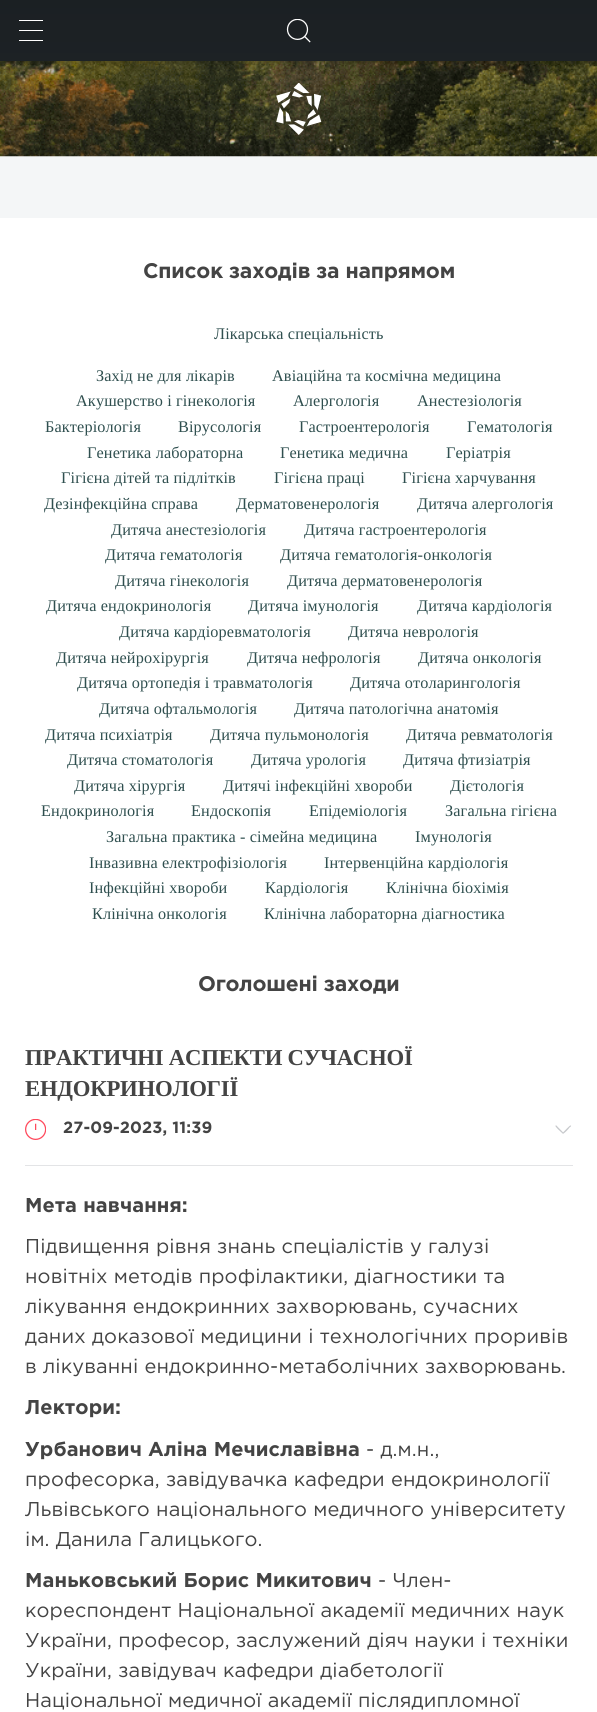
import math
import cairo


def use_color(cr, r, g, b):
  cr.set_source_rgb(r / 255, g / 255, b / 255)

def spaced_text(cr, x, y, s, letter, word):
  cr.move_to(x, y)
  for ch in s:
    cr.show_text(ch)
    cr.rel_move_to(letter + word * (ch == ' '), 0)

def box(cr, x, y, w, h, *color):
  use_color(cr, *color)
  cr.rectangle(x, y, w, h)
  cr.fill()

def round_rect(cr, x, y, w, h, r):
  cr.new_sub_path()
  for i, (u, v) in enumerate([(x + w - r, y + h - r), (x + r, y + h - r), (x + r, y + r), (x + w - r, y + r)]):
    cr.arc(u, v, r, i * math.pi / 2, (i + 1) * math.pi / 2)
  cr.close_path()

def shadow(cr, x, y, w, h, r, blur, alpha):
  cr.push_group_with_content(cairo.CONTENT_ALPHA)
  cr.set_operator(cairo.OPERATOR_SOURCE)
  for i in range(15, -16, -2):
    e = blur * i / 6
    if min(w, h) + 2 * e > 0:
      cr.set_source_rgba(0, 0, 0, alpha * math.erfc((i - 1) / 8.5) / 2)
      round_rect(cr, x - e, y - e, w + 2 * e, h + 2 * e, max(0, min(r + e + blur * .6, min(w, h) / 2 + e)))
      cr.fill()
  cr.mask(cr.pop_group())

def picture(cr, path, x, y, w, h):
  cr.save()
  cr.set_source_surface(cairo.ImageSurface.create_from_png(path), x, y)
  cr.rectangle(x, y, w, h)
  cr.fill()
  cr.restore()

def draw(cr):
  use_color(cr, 255, 255, 255)
  cr.paint()
  box(cr, 0, 156, 597, 62, 244, 246, 247)
  picture(cr, "img_01.png", 0, 61, 597, 96)
  use_color(cr, 0, 0, 0)
  shadow(cr, 0, 1, 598, 62, 0, 3, 0.2)
  box(cr, 0, 0, 597, 61, 34, 40, 44)
  gradient = cairo.LinearGradient(299, 0, 299, 287)
  gradient.add_color_stop_rgba(0, 0, 0, 0, 0.2)
  gradient.add_color_stop_rgba(1, 0, 0, 0, 0)
  cr.set_source(gradient)
  cr.rectangle(0, 0, 597, 156)
  cr.fill()
  box(cr, 19, 20, 24, 1, 255, 255, 255)
  box(cr, 19, 30, 24, 1, 255, 255, 255)
  box(cr, 19, 40, 24, 1, 255, 255, 255)
  picture(cr, "img_02.png", 286, 19, 25, 24)
  picture(cr, "img_03.png", 276, 83, 46, 52)
  box(cr, 25, 1165, 548, 1, 227, 228, 230)
  picture(cr, "img_04.png", 25, 1119, 21, 21)
  use_color(cr, 199, 201, 204)
  cr.new_path()
  cr.move_to(556.5, 1125.5)
  cr.curve_to(557, 1126.5, 563.5, 1132.5, 563.5, 1133)
  cr.curve_to(563.5, 1134.5, 562, 1133, 561.5, 1132.5)
  cr.curve_to(560.5, 1131.5, 554.5, 1126.5, 555.5, 1125.5)
  cr.curve_to(555.5, 1125.5, 556, 1125.5, 556.5, 1125.5)
  cr.close_path()
  cr.fill()
  cr.new_path()
  cr.move_to(563, 1132.5)
  cr.curve_to(564, 1131.5, 570, 1125, 570.5, 1125.5)
  cr.curve_to(572, 1125.5, 570.5, 1127, 569.5, 1127.5)
  cr.curve_to(569, 1128.5, 564, 1134, 563, 1133.5)
  cr.curve_to(562.5, 1133.5, 562.5, 1133, 563, 1132.5)
  cr.close_path()
  cr.fill()
  cr.select_font_face("Gotham", cairo.FONT_SLANT_NORMAL, cairo.FONT_WEIGHT_BOLD)
  cr.set_font_size(21.1)
  use_color(cr, 68, 68, 68)
  spaced_text(cr, 143, 278, "Список заходів за напрямом", -0.2, 0)
  cr.select_font_face("Liberation Serif")
  cr.set_font_size(16.25)
  use_color(cr, 47, 79, 79)
  spaced_text(cr, 214, 339, "Лікарська спеціальність", 0.13, 0)
  spaced_text(cr, 96, 381, "Захід не для лікарів", 0.13, 0)
  spaced_text(cr, 272, 381, "Авіаційна та космічна медицина", 0.13, 0)
  spaced_text(cr, 76, 406, "Акушерство і гінекологія", 0.13, 0)
  spaced_text(cr, 293, 406, "Алергологія", 0.13, 0)
  spaced_text(cr, 417, 406, "Анестезіологія", 0.13, 0)
  spaced_text(cr, 45, 432, "Бактеріологія", 0.13, 0)
  spaced_text(cr, 178, 432, "Вірусологія", 0.13, 0)
  spaced_text(cr, 299, 432, "Гастроентерологія", 0.13, 0)
  spaced_text(cr, 467, 432, "Гематологія", 0.13, 0)
  spaced_text(cr, 87, 458, "Генетика лабораторна", 0.13, 0)
  spaced_text(cr, 280, 458, "Генетика медична", 0.13, 0)
  spaced_text(cr, 446, 458, "Геріатрія", 0.13, 0)
  spaced_text(cr, 61, 483, "Гігієна дітей та підлітків", 0.13, 0)
  spaced_text(cr, 274, 483, "Гігієна праці", 0.13, 0)
  spaced_text(cr, 402, 483, "Гігієна харчування", 0.13, 0)
  spaced_text(cr, 44, 509, "Дезінфекційна справа", 0.13, 0)
  spaced_text(cr, 236, 509, "Дерматовенерологія", 0.13, 0)
  spaced_text(cr, 417, 509, "Дитяча алергологія", 0.13, 0)
  spaced_text(cr, 111, 535, "Дитяча анестезіологія", 0.13, 0)
  spaced_text(cr, 304, 535, "Дитяча гастроентерологія", 0.13, 0)
  spaced_text(cr, 105, 560, "Дитяча гематологія", 0.13, 0)
  spaced_text(cr, 280, 560, "Дитяча гематологія-онкологія", 0.13, 0)
  spaced_text(cr, 115, 586, "Дитяча гінекологія", 0.13, 0)
  spaced_text(cr, 287, 586, "Дитяча дерматовенерологія", 0.13, 0)
  spaced_text(cr, 46, 611, "Дитяча ендокринологія", 0.13, 0)
  spaced_text(cr, 248, 611, "Дитяча імунологія", 0.13, 0)
  spaced_text(cr, 417, 611, "Дитяча кардіологія", 0.13, 0)
  spaced_text(cr, 119, 637, "Дитяча кардіоревматологія", 0.13, 0)
  spaced_text(cr, 348, 637, "Дитяча неврологія", 0.13, 0)
  spaced_text(cr, 56, 663, "Дитяча нейрохірургія", 0.13, 0)
  spaced_text(cr, 247, 663, "Дитяча нефрологія", 0.13, 0)
  spaced_text(cr, 418, 663, "Дитяча онкологія", 0.13, 0)
  spaced_text(cr, 77, 688, "Дитяча ортопедія і травматологія", 0.13, 0)
  spaced_text(cr, 350, 688, "Дитяча отоларингологія", 0.13, 0)
  spaced_text(cr, 99, 714, "Дитяча офтальмологія", 0.13, 0)
  spaced_text(cr, 294, 714, "Дитяча патологічна анатомія", 0.13, 0)
  spaced_text(cr, 45, 740, "Дитяча психіатрія", 0.13, 0)
  spaced_text(cr, 210, 740, "Дитяча пульмонологія", 0.13, 0)
  spaced_text(cr, 406, 740, "Дитяча ревматологія", 0.13, 0)
  spaced_text(cr, 67, 765, "Дитяча стоматологія", 0.13, 0)
  spaced_text(cr, 251, 765, "Дитяча урологія", 0.13, 0)
  spaced_text(cr, 403, 765, "Дитяча фтизіатрія", 0.13, 0)
  spaced_text(cr, 74, 791, "Дитяча хірургія", 0.13, 0)
  spaced_text(cr, 223, 791, "Дитячі інфекційні хвороби", 0.13, 0)
  spaced_text(cr, 450, 791, "Дієтологія", 0.13, 0)
  spaced_text(cr, 41, 816, "Ендокринологія", 0.13, 0)
  spaced_text(cr, 191, 816, "Ендоскопія", 0.13, 0)
  spaced_text(cr, 309, 816, "Епідеміологія", 0.13, 0)
  spaced_text(cr, 445, 816, "Загальна гігієна", 0.13, 0)
  spaced_text(cr, 106, 842, "Загальна практика - сімейна медицина", 0.13, 0)
  spaced_text(cr, 415, 842, "Імунологія", 0.13, 0)
  spaced_text(cr, 89, 868, "Інвазивна електрофізіологія", 0.13, 0)
  spaced_text(cr, 324, 868, "Інтервенційна кардіологія", 0.13, 0)
  spaced_text(cr, 89, 893, "Інфекційні хвороби", 0.13, 0)
  spaced_text(cr, 265, 893, "Кардіологія", 0.13, 0)
  spaced_text(cr, 386, 893, "Клінічна біохімія", 0.13, 0)
  spaced_text(cr, 92, 919, "Клінічна онкологія", 0.13, 0)
  spaced_text(cr, 264, 919, "Клінічна лабораторна діагностика", 0.13, 0)
  cr.select_font_face("Gotham", cairo.FONT_SLANT_NORMAL, cairo.FONT_WEIGHT_BOLD)
  cr.set_font_size(21.1)
  use_color(cr, 68, 68, 68)
  spaced_text(cr, 198, 991, "Оголошені заходи", -0.2, 0)
  cr.select_font_face("Liberation Serif", cairo.FONT_SLANT_NORMAL, cairo.FONT_WEIGHT_BOLD)
  cr.set_font_size(22.75)
  spaced_text(cr, 25, 1065, "ПРАКТИЧНІ АСПЕКТИ СУЧАСНОЇ", -0.25, 0)
  spaced_text(cr, 25, 1096, "ЕНДОКРИНОЛОГІЇ", -0.25, 0)
  cr.select_font_face("Gotham", cairo.FONT_SLANT_NORMAL, cairo.FONT_WEIGHT_BOLD)
  cr.set_font_size(16.25)
  spaced_text(cr, 63, 1133, "27-09-2023, 11:39", 0.13, 0)
  cr.set_font_size(20)
  spaced_text(cr, 25, 1212, "Мета навчання:", 0.13, 0)
  cr.select_font_face("Gotham")
  spaced_text(cr, 25, 1253, "Підвищення рівня знань спеціалістів у галузі", 0.13, 0)
  spaced_text(cr, 25, 1283, "новітніх методів профілактики, діагностики та", 0.13, 0)
  spaced_text(cr, 25, 1313, "лікування ендокринних захворювань, сучасних", 0.13, 0)
  spaced_text(cr, 25, 1343, "даних доказової медицини і технологічних проривів", 0.13, 0)
  spaced_text(cr, 25, 1373, "в лікуванні ендокринно-метаболічних захворювань.", 0.13, 0)
  cr.select_font_face("Gotham", cairo.FONT_SLANT_NORMAL, cairo.FONT_WEIGHT_BOLD)
  spaced_text(cr, 25, 1414, "Лектори:", 0.13, 0)
  spaced_text(cr, 25, 1456, "Урбанович Аліна Мечиславівна", 0.13, 0)
  cr.select_font_face("Gotham")
  spaced_text(cr, 366, 1456, "- д.м.н.,", 0.13, 0)
  spaced_text(cr, 25, 1486, "професорка, завідувачка кафедри ендокринології", 0.13, 0)
  spaced_text(cr, 25, 1516, "Львівського національного медичного університету", 0.13, 0)
  spaced_text(cr, 25, 1546, "ім. Данила Галицького.", 0.13, 0)
  cr.select_font_face("Gotham", cairo.FONT_SLANT_NORMAL, cairo.FONT_WEIGHT_BOLD)
  spaced_text(cr, 25, 1587, "Маньковський Борис Микитович", 0.13, 0)
  cr.select_font_face("Gotham")
  spaced_text(cr, 378, 1587, "- Член-", 0.13, 0)
  spaced_text(cr, 25, 1617, "кореспондент Національної академії медичних наук", 0.13, 0)
  spaced_text(cr, 25, 1647, "України, професор, заслужений діяч науки і техніки", 0.13, 0)
  spaced_text(cr, 25, 1677, "України, завідувач кафедри діабетології", 0.13, 0)
  spaced_text(cr, 25, 1707, "Національної медичної академії післядипломної", 0.13, 0)


surface = cairo.ImageSurface(cairo.FORMAT_RGB24, 597, 1712)
cr = cairo.Context(surface)
options = cairo.FontOptions()
options.set_hint_metrics(cairo.HINT_METRICS_OFF)
options.set_hint_style(cairo.HINT_STYLE_NONE)
cr.set_font_options(options)
cr.set_miter_limit(4)
draw(cr)
surface.write_to_png("out.png")
